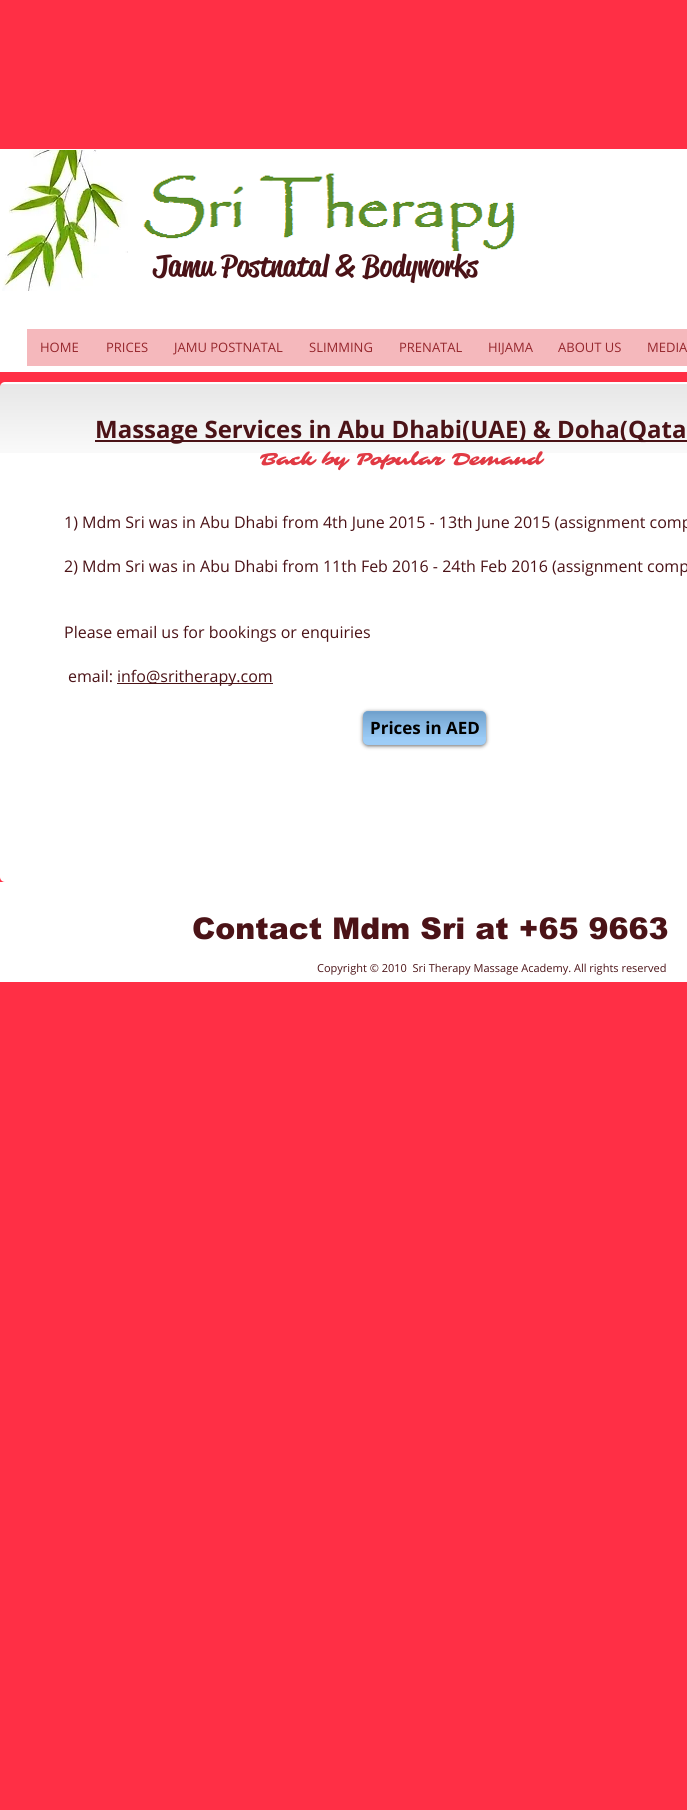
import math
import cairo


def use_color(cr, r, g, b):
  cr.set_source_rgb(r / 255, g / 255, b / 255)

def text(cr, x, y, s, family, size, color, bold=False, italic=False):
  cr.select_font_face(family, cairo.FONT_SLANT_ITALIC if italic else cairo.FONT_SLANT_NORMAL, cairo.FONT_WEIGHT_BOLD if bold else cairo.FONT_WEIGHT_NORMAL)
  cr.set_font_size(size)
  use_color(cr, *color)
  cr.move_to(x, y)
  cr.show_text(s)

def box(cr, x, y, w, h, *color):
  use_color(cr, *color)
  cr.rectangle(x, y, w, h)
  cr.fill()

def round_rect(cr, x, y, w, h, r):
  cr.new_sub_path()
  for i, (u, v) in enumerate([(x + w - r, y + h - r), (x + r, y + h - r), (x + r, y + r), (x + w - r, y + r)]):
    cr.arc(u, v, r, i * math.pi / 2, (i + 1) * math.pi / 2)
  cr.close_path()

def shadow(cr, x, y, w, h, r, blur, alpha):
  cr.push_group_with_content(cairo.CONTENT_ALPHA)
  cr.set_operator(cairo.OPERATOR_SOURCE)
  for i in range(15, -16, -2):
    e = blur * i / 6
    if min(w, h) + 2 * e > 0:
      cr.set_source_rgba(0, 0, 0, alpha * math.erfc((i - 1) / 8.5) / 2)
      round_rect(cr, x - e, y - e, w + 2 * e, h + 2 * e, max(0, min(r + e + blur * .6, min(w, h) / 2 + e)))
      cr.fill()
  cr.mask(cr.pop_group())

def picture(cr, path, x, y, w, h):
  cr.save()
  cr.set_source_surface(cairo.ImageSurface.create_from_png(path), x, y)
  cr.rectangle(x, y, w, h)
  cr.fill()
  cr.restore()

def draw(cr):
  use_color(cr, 255, 47, 69)
  cr.paint()
  box(cr, 0, 149, 687, 223, 255, 255, 255)
  picture(cr, "img_01.png", 2, 150, 126, 141)
  picture(cr, "img_02.png", 143, 173, 372, 78)
  box(cr, 27, 329, 660, 37, 245, 184, 188)
  use_color(cr, 255, 255, 255)
  round_rect(cr, 0, 382, 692, 500, 5)
  cr.fill()
  picture(cr, "img_03.png", 0, 384, 687, 69)
  box(cr, 95, 440, 592, 2, 75, 19, 23)
  box(cr, 117, 683, 156, 1, 75, 19, 23)
  use_color(cr, 0, 0, 0)
  shadow(cr, 363, 712, 123, 34, 5, 2, 0.6)
  use_color(cr, 134, 193, 245)
  round_rect(cr, 363, 711, 123, 34, 5)
  cr.fill()
  picture(cr, "img_04.png", 363, 711, 123, 26)
  picture(cr, "img_05.png", 363, 714, 123, 31)
  box(cr, 0, 882, 687, 100, 255, 255, 255)
  text(cr, 153, 276, "Jamu Postnatal & Bodyworks", "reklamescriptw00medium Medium", 30, (75, 19, 23))
  text(cr, 40, 352, "HOME", "Open Sans", 13, (150, 39, 45))
  text(cr, 106, 352, "PRICES", "Open Sans", 13, (150, 39, 45))
  text(cr, 174, 352, "JAMU POSTNATAL", "Open Sans", 13, (150, 39, 45))
  text(cr, 309, 352, "SLIMMING", "Open Sans", 13, (150, 39, 45))
  text(cr, 399, 352, "PRENATAL", "Open Sans", 13, (150, 39, 45))
  text(cr, 488, 352, "HIJAMA", "Open Sans", 13, (150, 39, 45))
  text(cr, 558, 352, "ABOUT US", "Open Sans", 13, (150, 39, 45))
  text(cr, 647, 352, "MEDIA", "Open Sans", 13, (150, 39, 45))
  text(cr, 95, 438, "Massage Services in Abu Dhabi(UAE) & Doha(Qata", "Open Sans", 24, (75, 19, 23), bold=True)
  text(cr, 260, 465, "Back by Popular Demand", "Sarina", 18, (225, 58, 68))
  text(cr, 64, 528, "1) Mdm Sri was in Abu Dhabi from 4th June 2015 - 13th June 2015 (assignment comp", "Open Sans", 16, (75, 19, 23))
  text(cr, 64, 572, "2) Mdm Sri was in Abu Dhabi from 11th Feb 2016 - 24th Feb 2016 (assignment comp", "Open Sans", 16, (75, 19, 23))
  text(cr, 64, 638, "Please email us for bookings or enquiries", "Open Sans", 16, (75, 19, 23))
  text(cr, 68, 682, "email:", "Open Sans", 16, (75, 19, 23))
  text(cr, 117, 682, "info@sritherapy.com", "Open Sans", 16, (75, 19, 23))
  text(cr, 370, 734, "Prices in AED", "Open Sans", 17, (0, 0, 0), bold=True)
  text(cr, 192, 939, "Contact Mdm Sri at +65 9663", "arial Black", 30, (75, 19, 23))
  text(cr, 317, 972, "Copyright © 2010  Sri Therapy Massage Academy. All rights reserved", "Open Sans", 11, (75, 19, 23))


surface = cairo.ImageSurface(cairo.FORMAT_RGB24, 687, 1810)
cr = cairo.Context(surface)
options = cairo.FontOptions()
options.set_hint_metrics(cairo.HINT_METRICS_OFF)
options.set_hint_style(cairo.HINT_STYLE_NONE)
cr.set_font_options(options)
cr.set_miter_limit(4)
draw(cr)
surface.write_to_png("out.png")
